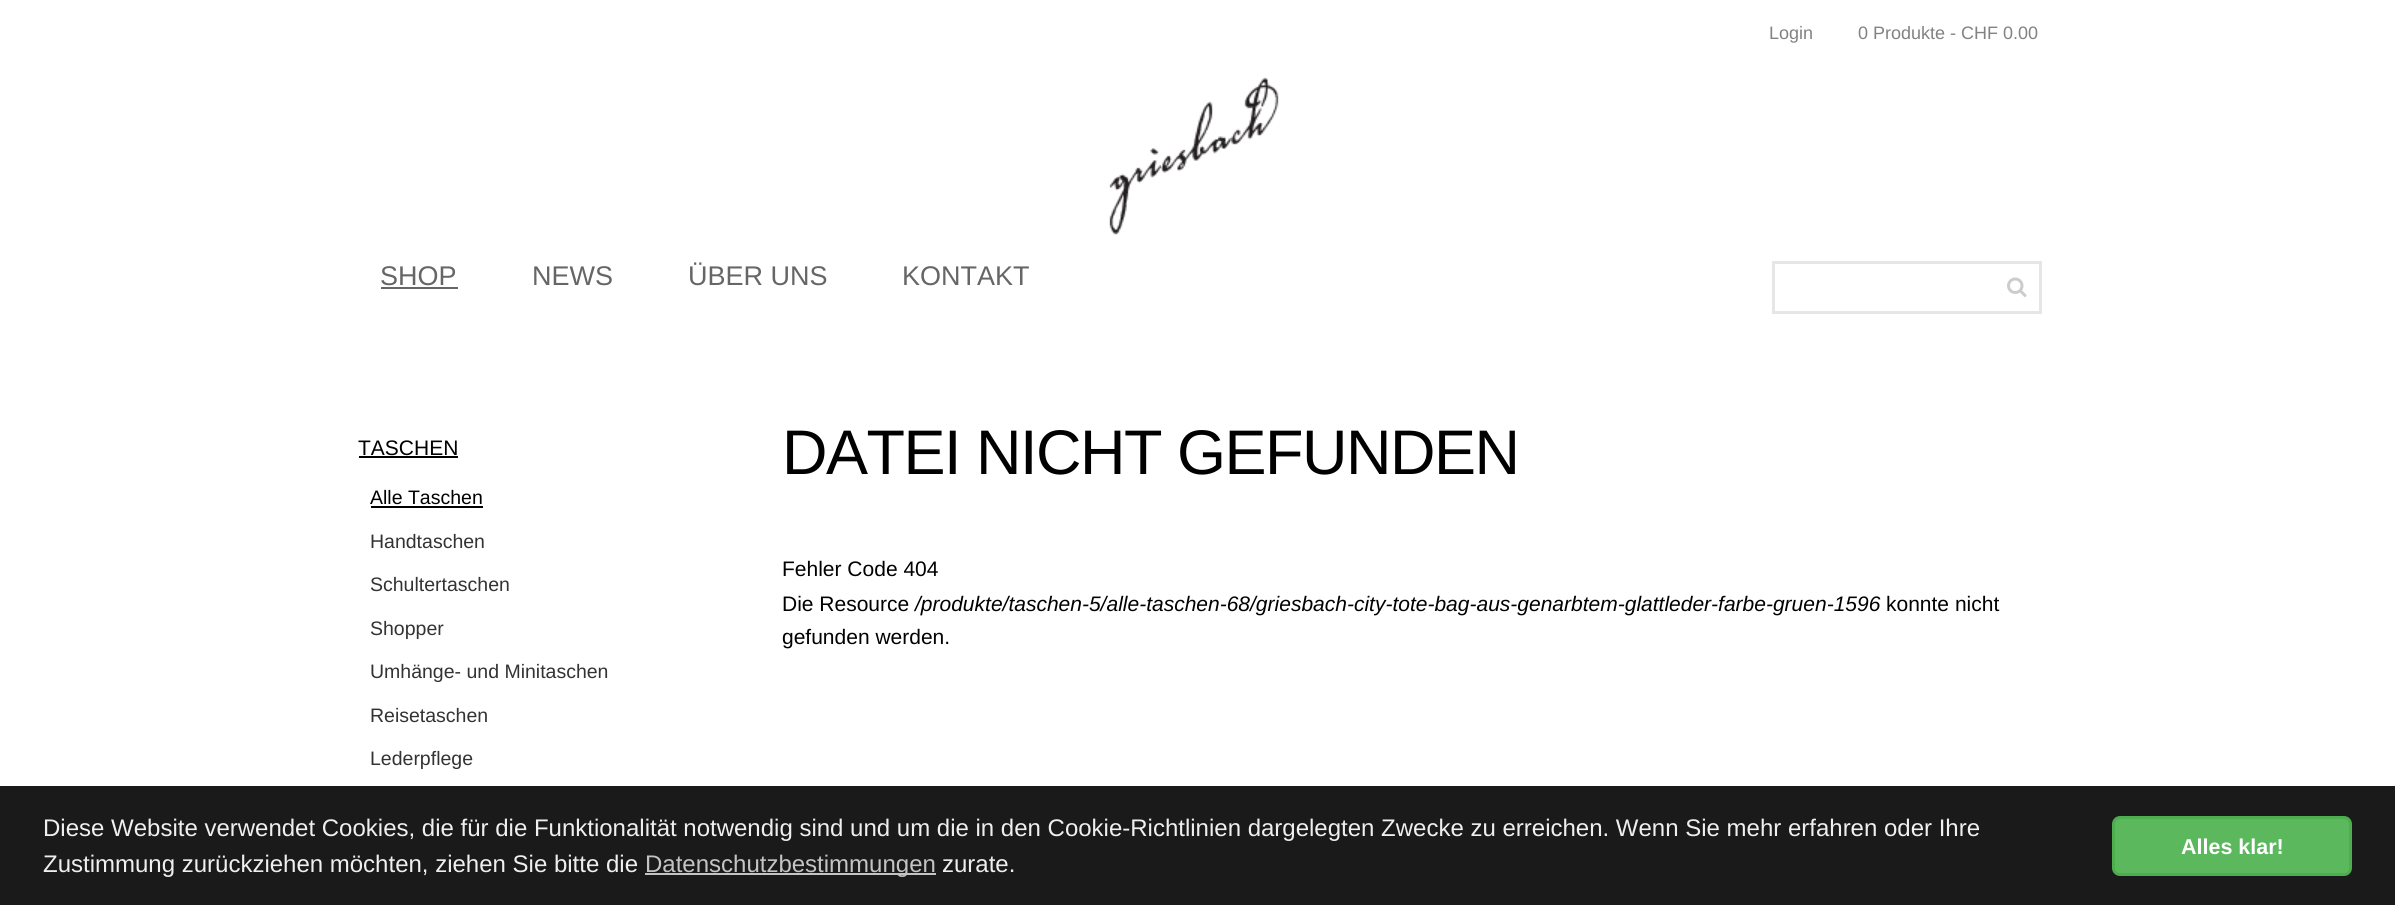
import math
import cairo


def use_color(cr, r, g, b):
  cr.set_source_rgb(r / 255, g / 255, b / 255)

def text(cr, x, y, s, family, size, color, bold=False, italic=False):
  cr.select_font_face(family, cairo.FONT_SLANT_ITALIC if italic else cairo.FONT_SLANT_NORMAL, cairo.FONT_WEIGHT_BOLD if bold else cairo.FONT_WEIGHT_NORMAL)
  cr.set_font_size(size)
  use_color(cr, *color)
  cr.move_to(x, y)
  cr.show_text(s)

def spaced_text(cr, x, y, s, letter, word):
  cr.move_to(x, y)
  for ch in s:
    cr.show_text(ch)
    cr.rel_move_to(letter + word * (ch == ' '), 0)

def box(cr, x, y, w, h, *color):
  use_color(cr, *color)
  cr.rectangle(x, y, w, h)
  cr.fill()

def round_rect(cr, x, y, w, h, r):
  cr.new_sub_path()
  for i, (u, v) in enumerate([(x + w - r, y + h - r), (x + r, y + h - r), (x + r, y + r), (x + w - r, y + r)]):
    cr.arc(u, v, r, i * math.pi / 2, (i + 1) * math.pi / 2)
  cr.close_path()

def picture(cr, path, x, y, w, h):
  cr.save()
  cr.set_source_surface(cairo.ImageSurface.create_from_png(path), x, y)
  cr.rectangle(x, y, w, h)
  cr.fill()
  cr.restore()

def draw(cr):
  use_color(cr, 255, 255, 255)
  cr.paint()
  picture(cr, "img_01.png", 1109, 77, 170, 158)
  box(cr, 381, 287, 77, 2, 102, 102, 102)
  cr.rectangle(1773.5, 262.5, 267, 50)
  use_color(cr, 230, 230, 230)
  cr.set_line_width(3)
  cr.stroke()
  picture(cr, "img_02.png", 2007, 277, 20, 20)
  box(cr, 359, 456, 99, 2, 0, 0, 0)
  box(cr, 371, 506, 112, 2, 0, 0, 0)
  box(cr, 0, 786, 2395, 119, 26, 26, 26)
  box(cr, 645, 873, 291, 2, 196, 196, 196)
  use_color(cr, 92, 184, 92)
  round_rect(cr, 2113.5, 817.5, 237, 57, 6.5)
  cr.fill_preserve()
  use_color(cr, 76, 174, 76)
  cr.stroke()
  text(cr, 1769, 39, "Login", "Liberation Sans", 18, (130, 130, 130))
  text(cr, 1858, 39, "0 Produkte - CHF 0.00", "Liberation Sans", 18, (130, 130, 130))
  text(cr, 380, 285, "SHOP", "Liberation Sans", 27, (102, 102, 102))
  text(cr, 532, 285, "NEWS", "Liberation Sans", 27, (102, 102, 102))
  text(cr, 688, 285, "ÜBER UNS", "Liberation Sans", 27, (102, 102, 102))
  text(cr, 902, 285, "KONTAKT", "Liberation Sans", 27, (102, 102, 102))
  text(cr, 358, 455, "TASCHEN", "Liberation Sans", 21, (0, 0, 0))
  text(cr, 370, 504, "Alle Taschen", "Liberation Sans", 19.5, (0, 0, 0))
  text(cr, 370, 548, "Handtaschen", "Liberation Sans", 19.5, (51, 51, 51))
  text(cr, 370, 591, "Schultertaschen", "Liberation Sans", 19.5, (51, 51, 51))
  text(cr, 370, 635, "Shopper", "Liberation Sans", 19.5, (51, 51, 51))
  text(cr, 370, 678, "Umhänge- und Minitaschen", "Liberation Sans", 19.5, (51, 51, 51))
  text(cr, 370, 722, "Reisetaschen", "Liberation Sans", 19.5, (51, 51, 51))
  text(cr, 370, 765, "Lederpflege", "Liberation Sans", 19.5, (51, 51, 51))
  cr.set_font_size(63)
  use_color(cr, 0, 0, 0)
  spaced_text(cr, 782, 474, "DATEI NICHT GEFUNDEN", -1.5, 0)
  text(cr, 782, 576, "Fehler Code 404", "Liberation Sans", 21, (0, 0, 0))
  text(cr, 782, 611, "Die Resource", "Liberation Sans", 21, (0, 0, 0))
  text(cr, 915, 611, "/produkte/taschen-5/alle-taschen-68/griesbach-city-tote-bag-aus-genarbtem-glattleder-farbe-gruen-1596", "Liberation Sans", 21, (0, 0, 0), italic=True)
  text(cr, 1886, 611, "konnte nicht", "Liberation Sans", 21, (0, 0, 0))
  text(cr, 782, 644, "gefunden werden.", "Liberation Sans", 21, (0, 0, 0))
  text(cr, 43, 836, "Diese Website verwendet Cookies, die für die Funktionalität notwendig sind und um die in den Cookie-Richtlinien dargelegten Zwecke zu erreichen. Wenn Sie mehr erfahren oder Ihre", "Liberation Sans", 24, (239, 239, 239))
  text(cr, 43, 872, "Zustimmung zurückziehen möchten, ziehen Sie bitte die", "Liberation Sans", 24, (239, 239, 239))
  text(cr, 645, 872, "Datenschutzbestimmungen", "Liberation Sans", 24, (196, 196, 196))
  text(cr, 942, 872, "zurate.", "Liberation Sans", 24, (239, 239, 239))
  text(cr, 2181, 854, "Alles klar!", "Liberation Sans", 21.5, (255, 255, 255), bold=True)


surface = cairo.ImageSurface(cairo.FORMAT_RGB24, 2395, 905)
cr = cairo.Context(surface)
options = cairo.FontOptions()
options.set_hint_metrics(cairo.HINT_METRICS_OFF)
options.set_hint_style(cairo.HINT_STYLE_NONE)
cr.set_font_options(options)
cr.set_miter_limit(4)
draw(cr)
surface.write_to_png("out.png")
